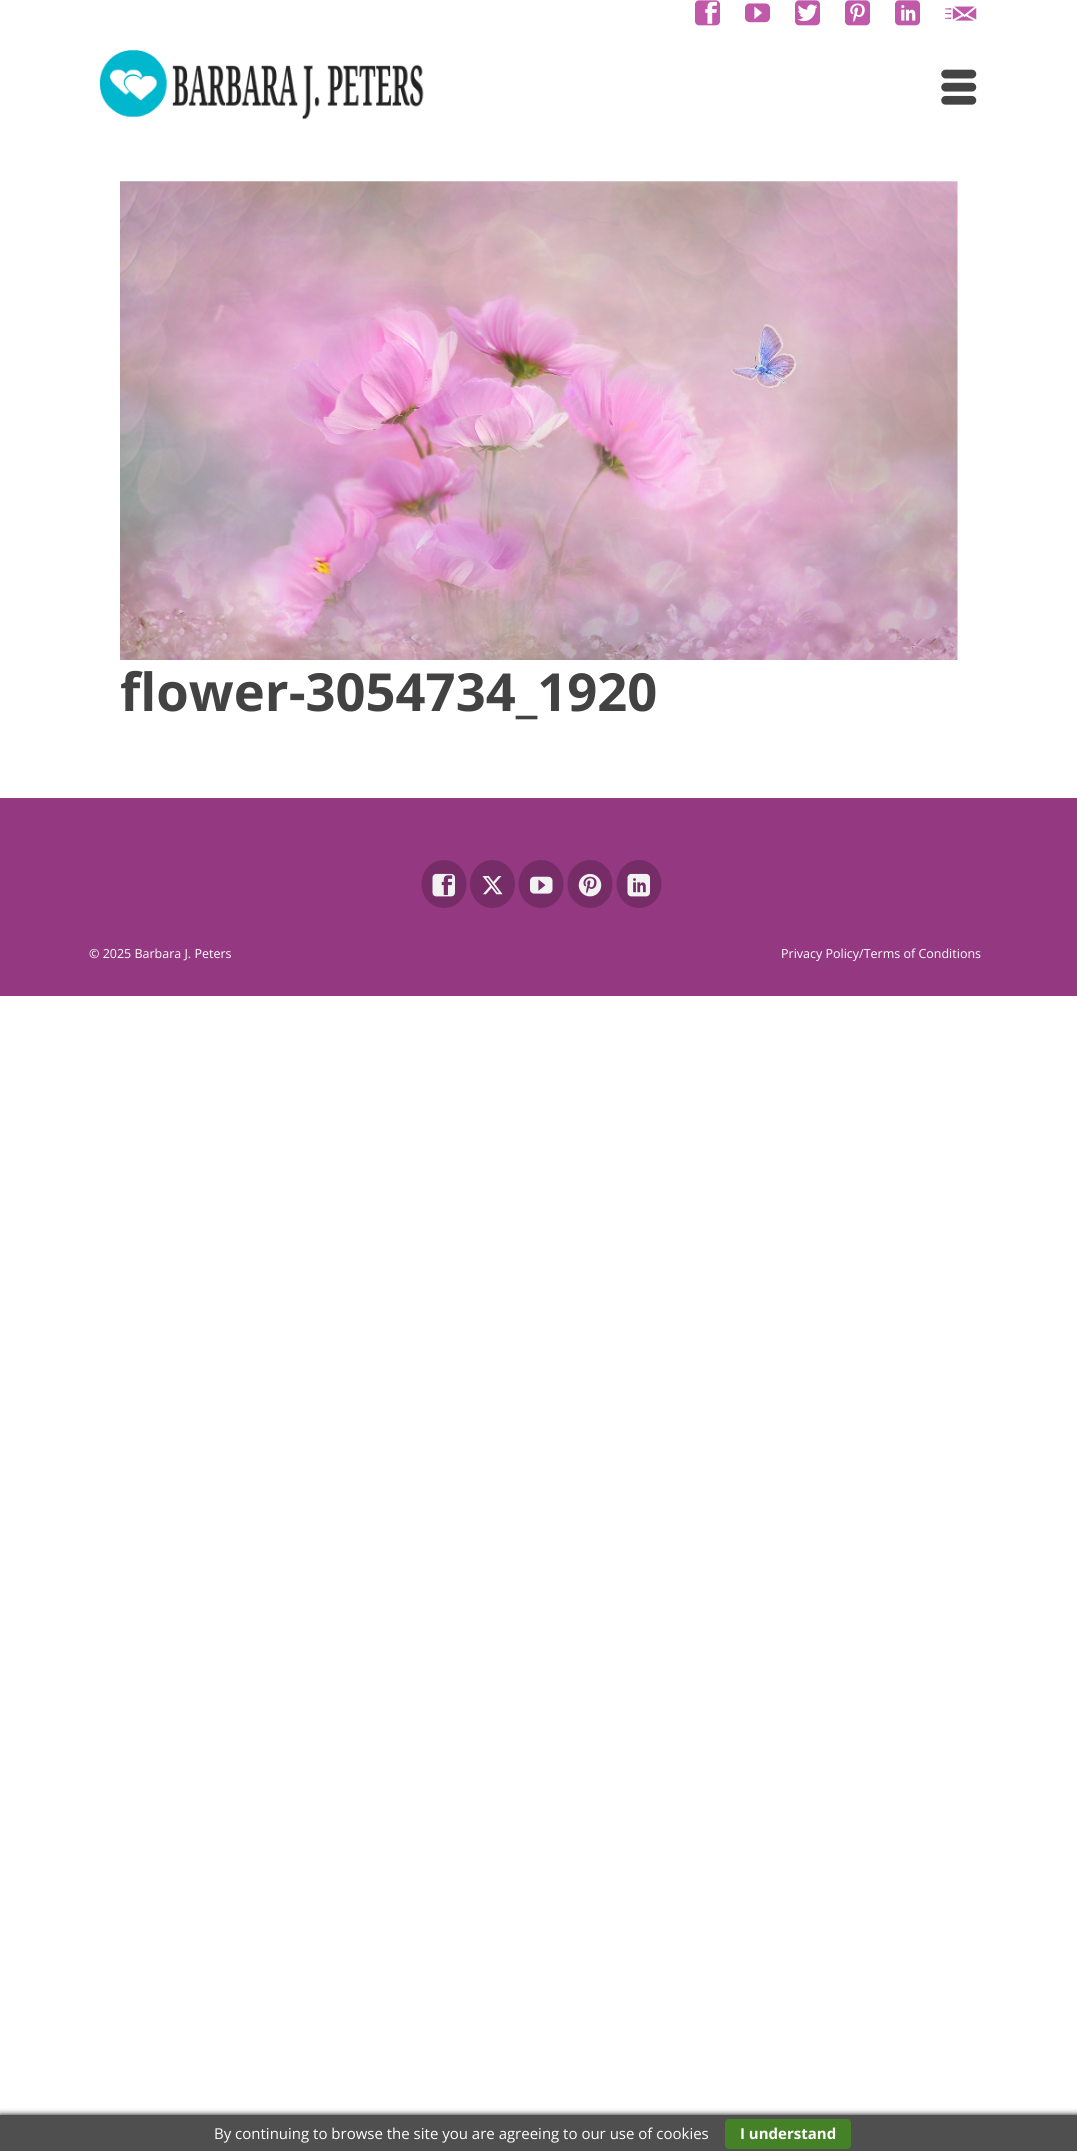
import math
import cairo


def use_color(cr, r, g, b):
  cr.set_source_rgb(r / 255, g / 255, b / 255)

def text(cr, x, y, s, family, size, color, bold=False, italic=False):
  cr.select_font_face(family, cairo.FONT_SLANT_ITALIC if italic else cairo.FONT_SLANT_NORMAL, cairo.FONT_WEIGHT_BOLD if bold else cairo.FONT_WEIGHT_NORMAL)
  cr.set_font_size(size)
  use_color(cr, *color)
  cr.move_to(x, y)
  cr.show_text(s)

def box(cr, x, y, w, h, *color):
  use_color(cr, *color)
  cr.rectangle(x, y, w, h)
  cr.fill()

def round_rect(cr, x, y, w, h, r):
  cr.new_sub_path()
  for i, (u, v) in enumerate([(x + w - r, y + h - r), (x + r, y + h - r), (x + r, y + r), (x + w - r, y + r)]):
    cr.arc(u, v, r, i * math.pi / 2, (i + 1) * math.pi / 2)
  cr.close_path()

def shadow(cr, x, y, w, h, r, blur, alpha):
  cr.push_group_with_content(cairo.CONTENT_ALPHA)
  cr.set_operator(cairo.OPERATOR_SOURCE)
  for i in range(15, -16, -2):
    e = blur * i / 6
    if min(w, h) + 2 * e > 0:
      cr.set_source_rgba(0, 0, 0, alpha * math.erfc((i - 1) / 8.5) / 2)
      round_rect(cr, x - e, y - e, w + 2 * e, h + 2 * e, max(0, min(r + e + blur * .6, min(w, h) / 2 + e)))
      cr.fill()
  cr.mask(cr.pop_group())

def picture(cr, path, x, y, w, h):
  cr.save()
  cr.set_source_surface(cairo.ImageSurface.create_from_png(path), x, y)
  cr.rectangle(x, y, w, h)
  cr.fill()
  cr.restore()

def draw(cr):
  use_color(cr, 255, 255, 255)
  cr.paint()
  picture(cr, "img_01.png", 695, 0, 25, 26)
  picture(cr, "img_02.png", 745, 3, 25, 20)
  picture(cr, "img_03.png", 795, 0, 25, 26)
  picture(cr, "img_04.png", 845, 0, 25, 26)
  picture(cr, "img_05.png", 895, 0, 25, 26)
  picture(cr, "img_06.png", 945, 6, 32, 15)
  picture(cr, "img_07.png", 99, 50, 325, 70)
  picture(cr, "img_08.png", 941, 69, 36, 36)
  picture(cr, "img_09.png", 120, 181, 838, 479)
  box(cr, 0, 798, 1077, 198, 148, 56, 129)
  use_color(cr, 118, 45, 103)
  cr.new_path()
  cr.move_to(444, 860)
  cr.curve_to(456.5, 860, 466.5, 870.5, 466.5, 884)
  cr.curve_to(466.5, 897.5, 456.5, 908, 444, 908)
  cr.curve_to(431.5, 908, 421.5, 897.5, 421.5, 884)
  cr.curve_to(421.5, 870.5, 431.5, 860, 444, 860)
  cr.close_path()
  cr.fill()
  picture(cr, "img_10.png", 432, 873, 23, 24)
  cr.new_path()
  cr.move_to(492.5, 860)
  cr.curve_to(505, 860, 515, 870.5, 515, 884)
  cr.curve_to(515, 897.5, 505, 908, 492.5, 908)
  cr.curve_to(480, 908, 470, 897.5, 470, 884)
  cr.curve_to(470, 870.5, 480, 860, 492.5, 860)
  cr.close_path()
  cr.fill()
  picture(cr, "img_11.png", 482, 876, 21, 19)
  cr.new_path()
  cr.move_to(541, 860)
  cr.curve_to(553.5, 860, 563.5, 870.5, 563.5, 884)
  cr.curve_to(563.5, 897.5, 553.5, 908, 541, 908)
  cr.curve_to(528.5, 908, 518.5, 897.5, 518.5, 884)
  cr.curve_to(518.5, 870.5, 528.5, 860, 541, 860)
  cr.close_path()
  cr.fill()
  picture(cr, "img_12.png", 530, 876, 23, 18)
  cr.new_path()
  cr.move_to(590, 860)
  cr.curve_to(602.5, 860, 612.5, 870.5, 612.5, 884)
  cr.curve_to(612.5, 897.5, 602.5, 908, 590, 908)
  cr.curve_to(577.5, 908, 567.5, 897.5, 567.5, 884)
  cr.curve_to(567.5, 870.5, 577.5, 860, 590, 860)
  cr.close_path()
  cr.fill()
  picture(cr, "img_13.png", 578, 873, 24, 24)
  cr.new_path()
  cr.move_to(639, 860)
  cr.curve_to(651.5, 860, 661.5, 870.5, 661.5, 884)
  cr.curve_to(661.5, 897.5, 651.5, 908, 639, 908)
  cr.curve_to(626.5, 908, 616.5, 897.5, 616.5, 884)
  cr.curve_to(616.5, 870.5, 626.5, 860, 639, 860)
  cr.close_path()
  cr.fill()
  picture(cr, "img_14.png", 627, 873, 23, 24)
  use_color(cr, 0, 0, 0)
  shadow(cr, 0, 2115, 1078, 36, 0, 3, 1)
  box(cr, 0, 2115, 1077, 36, 79, 79, 79)
  use_color(cr, 69, 130, 39)
  round_rect(cr, 725, 2119, 126, 30, 4)
  cr.fill()
  text(cr, 120, 711, "flower-3054734_1920", "Open Sans", 52.5, (66, 66, 66), bold=True)
  text(cr, 89, 958, "© 2025 Barbara J. Peters", "Open Sans", 12.5, (255, 255, 255))
  text(cr, 781, 958, "Privacy Policy/Terms of Conditions", "Open Sans", 12.5, (255, 255, 255))
  text(cr, 214, 2139, "By continuing to browse the site you are agreeing to our use of cookies", "Open Sans", 15, (255, 255, 255))
  text(cr, 740, 2139, "I understand", "Open Sans", 15, (255, 255, 255), bold=True)


surface = cairo.ImageSurface(cairo.FORMAT_RGB24, 1077, 2151)
cr = cairo.Context(surface)
options = cairo.FontOptions()
options.set_hint_metrics(cairo.HINT_METRICS_OFF)
options.set_hint_style(cairo.HINT_STYLE_NONE)
cr.set_font_options(options)
cr.set_miter_limit(4)
draw(cr)
surface.write_to_png("out.png")
